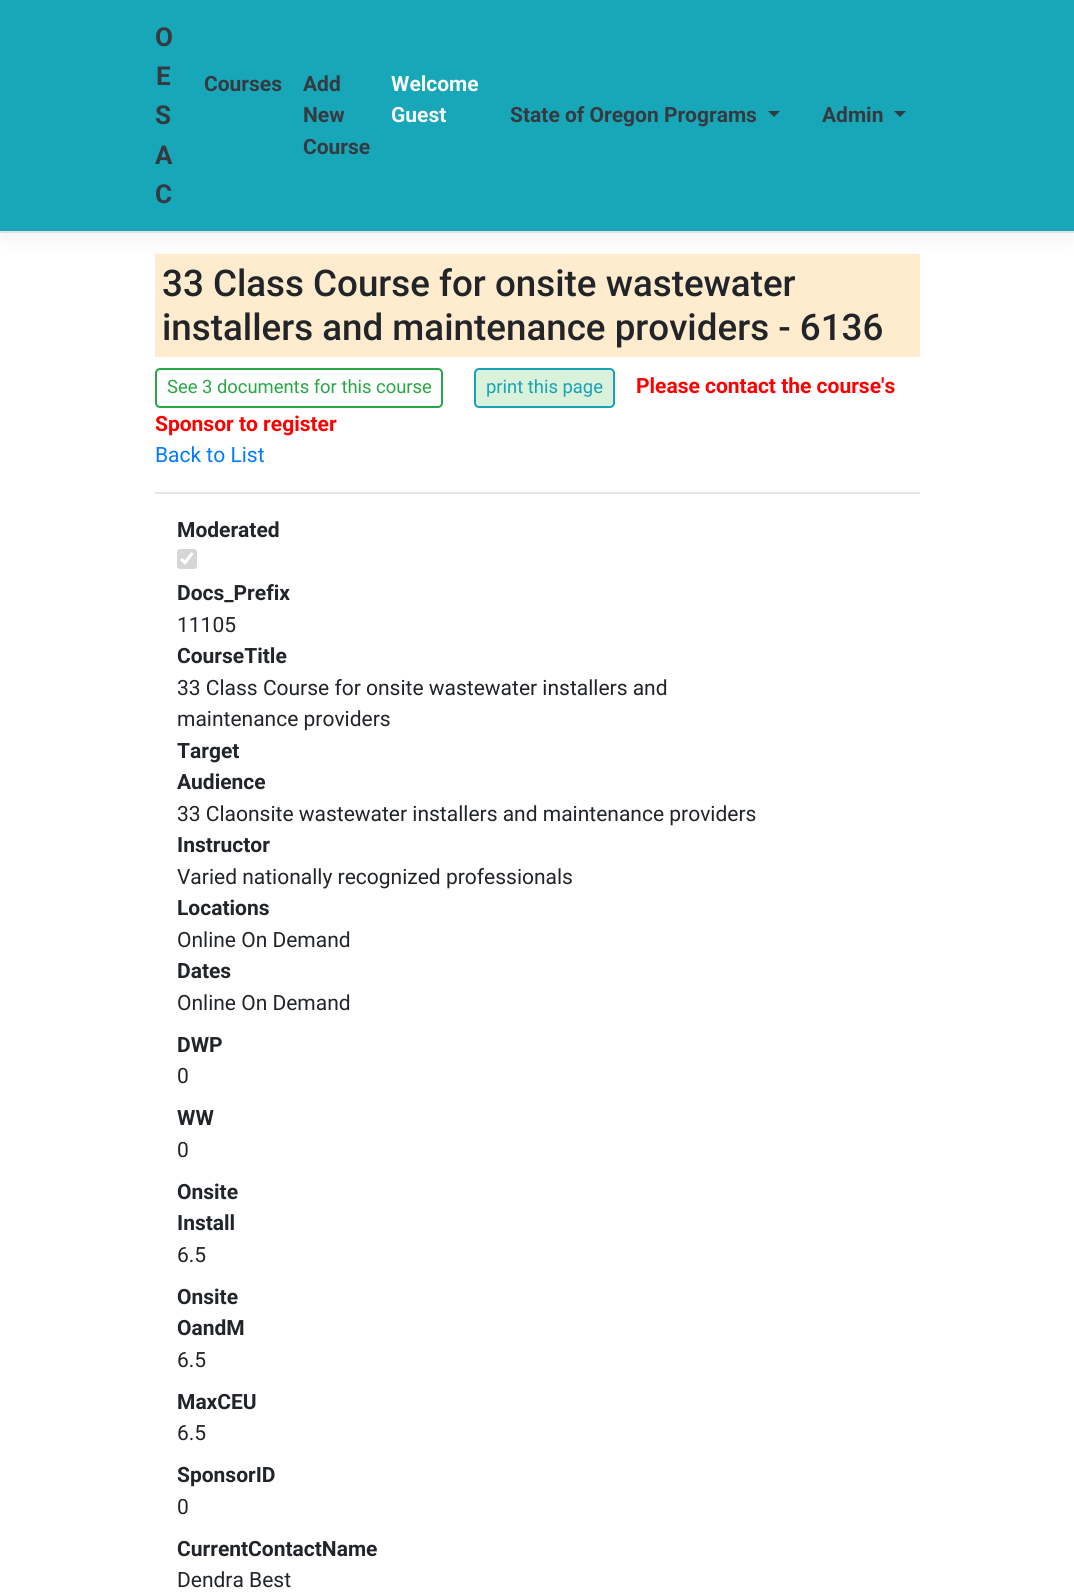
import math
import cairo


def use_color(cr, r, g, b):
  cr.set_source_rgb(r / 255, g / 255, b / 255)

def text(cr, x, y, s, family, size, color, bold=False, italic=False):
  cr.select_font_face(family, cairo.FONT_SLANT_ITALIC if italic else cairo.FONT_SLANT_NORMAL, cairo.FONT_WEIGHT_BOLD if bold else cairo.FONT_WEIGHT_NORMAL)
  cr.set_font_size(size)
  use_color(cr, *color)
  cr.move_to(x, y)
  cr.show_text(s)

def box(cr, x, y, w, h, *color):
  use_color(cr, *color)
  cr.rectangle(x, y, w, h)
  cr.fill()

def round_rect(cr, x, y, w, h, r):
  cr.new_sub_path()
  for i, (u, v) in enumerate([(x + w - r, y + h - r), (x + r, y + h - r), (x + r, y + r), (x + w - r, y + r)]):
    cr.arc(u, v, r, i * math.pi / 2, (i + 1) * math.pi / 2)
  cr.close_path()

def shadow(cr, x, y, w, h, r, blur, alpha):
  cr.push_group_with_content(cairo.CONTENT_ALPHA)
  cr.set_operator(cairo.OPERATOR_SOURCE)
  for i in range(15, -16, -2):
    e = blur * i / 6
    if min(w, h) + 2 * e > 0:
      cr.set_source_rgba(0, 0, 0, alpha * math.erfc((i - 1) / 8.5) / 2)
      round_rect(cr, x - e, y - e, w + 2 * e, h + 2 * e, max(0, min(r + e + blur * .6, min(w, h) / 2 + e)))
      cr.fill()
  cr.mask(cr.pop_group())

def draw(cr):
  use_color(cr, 255, 255, 255)
  cr.paint()
  box(cr, 155, 254, 765, 103, 255, 235, 205)
  use_color(cr, 0, 0, 0)
  shadow(cr, 0, 6, 1074, 233, 0, 8, 0.05)
  box(cr, 0, 0, 1074, 231, 23, 167, 184)
  box(cr, 0, 231, 1074, 2, 222, 226, 230)
  use_color(cr, 52, 58, 64)
  cr.new_path()
  cr.move_to(768, 111)
  cr.line_to(780, 111)
  cr.line_to(774, 117)
  cr.close_path()
  cr.fill()
  cr.new_path()
  cr.move_to(894, 111)
  cr.line_to(906, 111)
  cr.line_to(900, 117)
  cr.close_path()
  cr.fill()
  round_rect(cr, 156, 369, 286, 38, 4)
  use_color(cr, 40, 167, 69)
  cr.stroke()
  use_color(cr, 217, 242, 217)
  round_rect(cr, 475, 369, 139, 38, 4)
  cr.fill_preserve()
  use_color(cr, 23, 162, 184)
  cr.stroke()
  box(cr, 155, 492, 765, 2, 230, 230, 230)
  use_color(cr, 214, 214, 214)
  round_rect(cr, 177, 549, 20, 20, 3)
  cr.fill()
  cr.new_path()
  cr.move_to(181, 559)
  cr.line_to(185, 562.5)
  cr.line_to(192.5, 553)
  use_color(cr, 255, 255, 255)
  cr.set_line_width(3.1)
  cr.stroke()
  text(cr, 155, 46, "O", "Roboto", 26, (52, 58, 64), bold=True)
  text(cr, 156, 85, "E", "Roboto", 26, (52, 58, 64), bold=True)
  text(cr, 155, 124, "S", "Roboto", 26, (52, 58, 64), bold=True)
  text(cr, 155, 164, "A", "Roboto", 26, (52, 58, 64), bold=True)
  text(cr, 155, 203, "C", "Roboto", 26, (52, 58, 64), bold=True)
  text(cr, 204, 91, "Courses", "Roboto", 21, (52, 58, 64), bold=True)
  text(cr, 303, 91, "Add", "Roboto", 21, (52, 58, 64), bold=True)
  text(cr, 303, 122, "New", "Roboto", 21, (52, 58, 64), bold=True)
  text(cr, 303, 154, "Course", "Roboto", 21, (52, 58, 64), bold=True)
  text(cr, 391, 91, "Welcome", "Roboto", 21, (248, 249, 250), bold=True)
  text(cr, 391, 122, "Guest", "Roboto", 21, (248, 249, 250), bold=True)
  text(cr, 510, 122, "State of Oregon Programs", "Roboto", 21, (52, 58, 64), bold=True)
  text(cr, 822, 122, "Admin", "Roboto", 21, (52, 58, 64), bold=True)
  text(cr, 162, 296, "33 Class Course for onsite wastewater", "Roboto Medium", 36.75, (33, 37, 41))
  text(cr, 162, 340, "installers and maintenance providers - 6136", "Roboto Medium", 36.75, (33, 37, 41))
  text(cr, 167, 393, "See 3 documents for this course", "Roboto", 18.4, (40, 167, 69))
  text(cr, 486, 393, "print this page", "Roboto", 18.4, (23, 162, 184))
  text(cr, 636, 393, "Please contact the course's", "Roboto", 21, (255, 0, 0), bold=True)
  text(cr, 155, 431, "Sponsor to register", "Roboto", 21, (255, 0, 0), bold=True)
  text(cr, 155, 462, "Back to List", "Roboto", 21, (0, 123, 255))
  text(cr, 177, 537, "Moderated", "Roboto", 21, (33, 37, 41), bold=True)
  text(cr, 177, 600, "Docs_Prefix", "Roboto", 21, (33, 37, 41), bold=True)
  text(cr, 177, 632, "11105", "Roboto", 21, (33, 37, 41))
  text(cr, 177, 663, "CourseTitle", "Roboto", 21, (33, 37, 41), bold=True)
  text(cr, 177, 695, "33 Class Course for onsite wastewater installers and", "Roboto", 21, (33, 37, 41))
  text(cr, 177, 726, "maintenance providers", "Roboto", 21, (33, 37, 41))
  text(cr, 177, 758, "Target", "Roboto", 21, (33, 37, 41), bold=True)
  text(cr, 177, 789, "Audience", "Roboto", 21, (33, 37, 41), bold=True)
  text(cr, 177, 821, "33 Claonsite wastewater installers and maintenance providers", "Roboto", 21, (33, 37, 41))
  text(cr, 177, 852, "Instructor", "Roboto", 21, (33, 37, 41), bold=True)
  text(cr, 177, 884, "Varied nationally recognized professionals", "Roboto", 21, (33, 37, 41))
  text(cr, 177, 915, "Locations", "Roboto", 21, (33, 37, 41), bold=True)
  text(cr, 177, 947, "Online On Demand", "Roboto", 21, (33, 37, 41))
  text(cr, 177, 978, "Dates", "Roboto", 21, (33, 37, 41), bold=True)
  text(cr, 177, 1010, "Online On Demand", "Roboto", 21, (33, 37, 41))
  text(cr, 177, 1052, "DWP", "Roboto", 21, (33, 37, 41), bold=True)
  text(cr, 177, 1083, "0", "Roboto", 21, (33, 37, 41))
  text(cr, 177, 1125, "WW", "Roboto", 21, (33, 37, 41), bold=True)
  text(cr, 177, 1157, "0", "Roboto", 21, (33, 37, 41))
  text(cr, 177, 1199, "Onsite", "Roboto", 21, (33, 37, 41), bold=True)
  text(cr, 177, 1230, "Install", "Roboto", 21, (33, 37, 41), bold=True)
  text(cr, 177, 1262, "6.5", "Roboto", 21, (33, 37, 41))
  text(cr, 177, 1304, "Onsite", "Roboto", 21, (33, 37, 41), bold=True)
  text(cr, 177, 1335, "OandM", "Roboto", 21, (33, 37, 41), bold=True)
  text(cr, 177, 1367, "6.5", "Roboto", 21, (33, 37, 41))
  text(cr, 177, 1409, "MaxCEU", "Roboto", 21, (33, 37, 41), bold=True)
  text(cr, 177, 1440, "6.5", "Roboto", 21, (33, 37, 41))
  text(cr, 177, 1482, "SponsorID", "Roboto", 21, (33, 37, 41), bold=True)
  text(cr, 177, 1514, "0", "Roboto", 21, (33, 37, 41))
  text(cr, 177, 1556, "CurrentContactName", "Roboto", 21, (33, 37, 41), bold=True)
  text(cr, 177, 1587, "Dendra Best", "Roboto", 21, (33, 37, 41))


surface = cairo.ImageSurface(cairo.FORMAT_RGB24, 1074, 1592)
cr = cairo.Context(surface)
options = cairo.FontOptions()
options.set_hint_metrics(cairo.HINT_METRICS_OFF)
options.set_hint_style(cairo.HINT_STYLE_NONE)
cr.set_font_options(options)
cr.set_miter_limit(4)
draw(cr)
surface.write_to_png("out.png")
